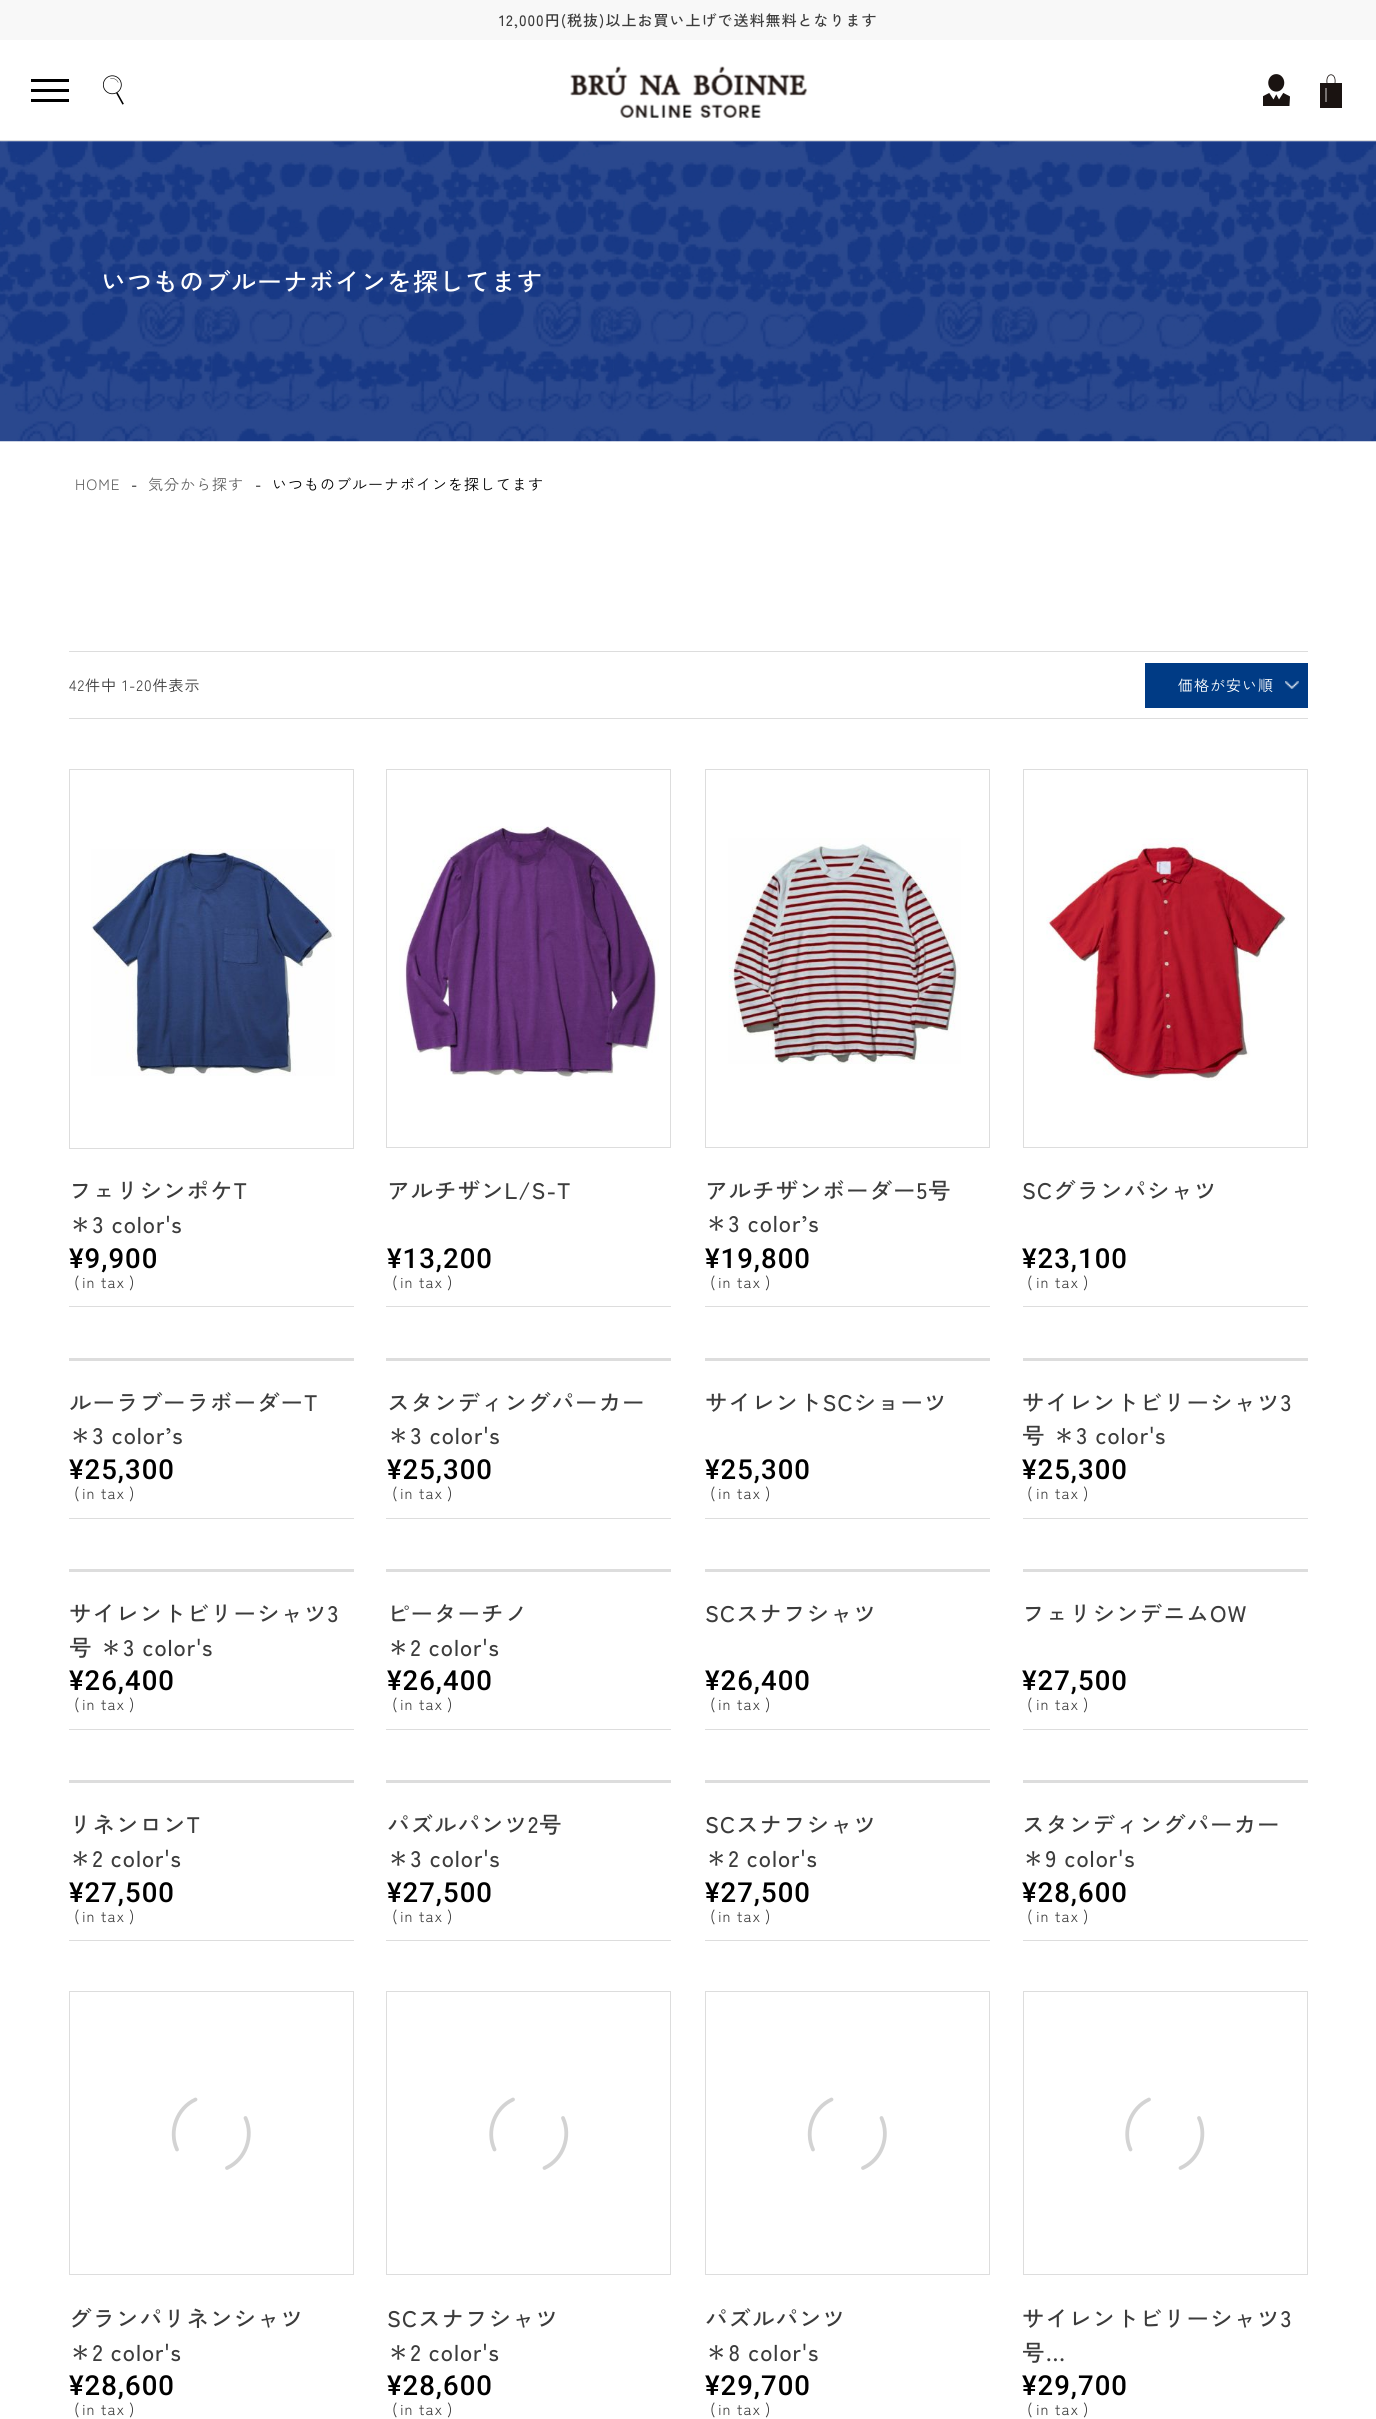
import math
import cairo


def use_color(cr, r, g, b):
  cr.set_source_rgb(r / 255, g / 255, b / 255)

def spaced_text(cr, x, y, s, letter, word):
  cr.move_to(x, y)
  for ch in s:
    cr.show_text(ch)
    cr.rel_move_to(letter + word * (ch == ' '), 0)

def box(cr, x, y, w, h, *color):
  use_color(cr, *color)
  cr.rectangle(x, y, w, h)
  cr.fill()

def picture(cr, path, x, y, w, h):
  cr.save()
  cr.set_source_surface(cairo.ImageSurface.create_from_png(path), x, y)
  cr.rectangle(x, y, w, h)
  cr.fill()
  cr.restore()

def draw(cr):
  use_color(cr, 255, 255, 255)
  cr.paint()
  box(cr, 0, 0, 1376, 40, 248, 248, 248)
  box(cr, 0, 140, 1376, 1, 221, 221, 221)
  box(cr, 31, 79, 38, 3, 0, 0, 0)
  box(cr, 31, 89, 38, 3, 0, 0, 0)
  box(cr, 31, 99, 38, 3, 0, 0, 0)
  picture(cr, "img_01.png", 103, 75, 21, 30)
  picture(cr, "img_02.png", 570, 66, 238, 52)
  picture(cr, "img_03.png", 1263, 74, 27, 32)
  box(cr, 1320, 83, 22, 25, 26, 19, 17)
  cr.new_path()
  cr.move_to(1327, 83)
  cr.curve_to(1325.5, 72, 1336.5, 72, 1335, 83)
  cr.set_line_width(0.8)
  cr.stroke()
  cr.new_path()
  cr.move_to(1326, 88)
  cr.line_to(1326, 102)
  use_color(cr, 255, 255, 255)
  cr.stroke()
  picture(cr, "img_04.png", 0, 141, 1376, 301)
  box(cr, 69, 651, 1239, 1, 221, 221, 221)
  box(cr, 69, 718, 1239, 1, 221, 221, 221)
  box(cr, 1145, 663, 163, 45, 0, 59, 133)
  picture(cr, "img_05.png", 1285, 681, 14, 8)
  cr.rectangle(69.5, 769.5, 284, 379)
  use_color(cr, 221, 221, 221)
  cr.set_line_width(1)
  cr.stroke()
  picture(cr, "img_06.png", 91, 849, 244, 227)
  box(cr, 69, 1306, 285, 1, 221, 221, 221)
  cr.rectangle(386.5, 769.5, 284, 378)
  cr.stroke()
  picture(cr, "img_07.png", 399, 826, 260, 254)
  box(cr, 386, 1306, 285, 1, 221, 221, 221)
  cr.rectangle(705.5, 769.5, 284, 378)
  cr.stroke()
  picture(cr, "img_08.png", 728, 838, 233, 226)
  box(cr, 705, 1306, 285, 1, 221, 221, 221)
  cr.rectangle(1023.5, 769.5, 284, 378)
  cr.stroke()
  picture(cr, "img_09.png", 1046, 838, 242, 243)
  box(cr, 1023, 1306, 285, 1, 221, 221, 221)
  box(cr, 69, 1358, 285, 3, 221, 221, 221)
  box(cr, 69, 1518, 285, 1, 221, 221, 221)
  box(cr, 386, 1358, 285, 3, 221, 221, 221)
  box(cr, 386, 1518, 285, 1, 221, 221, 221)
  box(cr, 705, 1358, 285, 3, 221, 221, 221)
  box(cr, 705, 1518, 285, 1, 221, 221, 221)
  box(cr, 1023, 1358, 285, 3, 221, 221, 221)
  box(cr, 1023, 1518, 285, 1, 221, 221, 221)
  box(cr, 69, 1569, 285, 3, 221, 221, 221)
  box(cr, 69, 1729, 285, 1, 221, 221, 221)
  box(cr, 386, 1569, 285, 3, 221, 221, 221)
  box(cr, 386, 1729, 285, 1, 221, 221, 221)
  box(cr, 705, 1569, 285, 3, 221, 221, 221)
  box(cr, 705, 1729, 285, 1, 221, 221, 221)
  box(cr, 1023, 1569, 285, 3, 221, 221, 221)
  box(cr, 1023, 1729, 285, 1, 221, 221, 221)
  box(cr, 69, 1780, 285, 3, 221, 221, 221)
  box(cr, 69, 1940, 285, 1, 221, 221, 221)
  box(cr, 386, 1780, 285, 3, 221, 221, 221)
  box(cr, 386, 1940, 285, 1, 221, 221, 221)
  box(cr, 705, 1780, 285, 3, 221, 221, 221)
  box(cr, 705, 1940, 285, 1, 221, 221, 221)
  box(cr, 1023, 1780, 285, 3, 221, 221, 221)
  box(cr, 1023, 1940, 285, 1, 221, 221, 221)
  cr.rectangle(69.5, 1991.5, 284, 283)
  cr.stroke()
  cr.new_path()
  cr.move_to(177, 2149.5)
  cr.curve_to(168.5, 2131, 177, 2108, 195.5, 2099.5)
  cr.move_to(245.5, 2118)
  cr.curve_to(254, 2136.5, 245.5, 2159.5, 227, 2168)
  use_color(cr, 211, 211, 211)
  cr.set_line_width(3.8)
  cr.set_line_cap(cairo.LINE_CAP_ROUND)
  cr.stroke()
  cr.rectangle(386.5, 1991.5, 284, 283)
  use_color(cr, 221, 221, 221)
  cr.set_line_width(1)
  cr.set_line_cap(cairo.LINE_CAP_BUTT)
  cr.stroke()
  cr.new_path()
  cr.move_to(494.5, 2149.5)
  cr.curve_to(486, 2131, 494.5, 2108, 513, 2099.5)
  cr.move_to(563, 2118)
  cr.curve_to(571.5, 2136.5, 563, 2159.5, 544.5, 2168)
  use_color(cr, 211, 211, 211)
  cr.set_line_width(3.8)
  cr.set_line_cap(cairo.LINE_CAP_ROUND)
  cr.stroke()
  cr.rectangle(705.5, 1991.5, 284, 283)
  use_color(cr, 221, 221, 221)
  cr.set_line_width(1)
  cr.set_line_cap(cairo.LINE_CAP_BUTT)
  cr.stroke()
  cr.new_path()
  cr.move_to(813, 2149.5)
  cr.curve_to(804.5, 2131, 813, 2108, 831.5, 2099.5)
  cr.move_to(881.5, 2118)
  cr.curve_to(890, 2136.5, 882, 2159.5, 863, 2168)
  use_color(cr, 211, 211, 211)
  cr.set_line_width(3.8)
  cr.set_line_cap(cairo.LINE_CAP_ROUND)
  cr.stroke()
  cr.rectangle(1023.5, 1991.5, 284, 283)
  use_color(cr, 221, 221, 221)
  cr.set_line_width(1)
  cr.set_line_cap(cairo.LINE_CAP_BUTT)
  cr.stroke()
  cr.new_path()
  cr.move_to(1130.5, 2149.5)
  cr.curve_to(1122, 2131, 1130.5, 2108, 1149, 2099.5)
  cr.move_to(1199, 2118)
  cr.curve_to(1207.5, 2136.5, 1199.5, 2159.5, 1180.5, 2168)
  use_color(cr, 211, 211, 211)
  cr.set_line_width(3.8)
  cr.set_line_cap(cairo.LINE_CAP_ROUND)
  cr.stroke()
  cr.select_font_face("Zen Kaku Gothic New Medium")
  cr.set_font_size(15)
  use_color(cr, 60, 60, 60)
  spaced_text(cr, 499, 26, "12,000円(税抜)以上お買い上げで送料無料となります", 1, 0)
  cr.set_font_size(25)
  use_color(cr, 255, 255, 255)
  spaced_text(cr, 101, 291, "いつものブルーナボインを探してます", 1, 0)
  cr.select_font_face("Zen Kaku Gothic New")
  cr.set_font_size(15)
  use_color(cr, 100, 100, 100)
  spaced_text(cr, 75, 490, "HOME", 1, 0)
  use_color(cr, 0, 0, 0)
  spaced_text(cr, 131, 490, "-", 1, 0)
  use_color(cr, 100, 100, 100)
  spaced_text(cr, 148, 490, "気分から探す", 1, 0)
  use_color(cr, 0, 0, 0)
  spaced_text(cr, 255, 490, "-", 1, 0)
  spaced_text(cr, 272, 490, "いつものブルーナボインを探してます", 1, 0)
  use_color(cr, 60, 60, 60)
  spaced_text(cr, 69, 691, "42件中 1-20件表示", 1, 0)
  use_color(cr, 255, 255, 255)
  spaced_text(cr, 1178, 691, "価格が安い順", 1, 0)
  cr.select_font_face("Zen Kaku Gothic New Medium")
  cr.set_font_size(22.5)
  use_color(cr, 60, 60, 60)
  spaced_text(cr, 69, 1199, "フェリシンポケT", 1, 0)
  spaced_text(cr, 69, 1233, "＊3 color's", 1, 0)
  cr.select_font_face("Roboto Medium")
  cr.set_font_size(27.5)
  use_color(cr, 0, 0, 0)
  spaced_text(cr, 69, 1268, "¥9,900", 1, 0)
  cr.select_font_face("Zen Kaku Gothic New")
  cr.set_font_size(16)
  use_color(cr, 60, 60, 60)
  spaced_text(cr, 74, 1288, "(", 1, 0)
  cr.set_font_size(15)
  spaced_text(cr, 82, 1288, "in tax", 1, 0)
  cr.set_font_size(16)
  spaced_text(cr, 129, 1288, ")", 1, 0)
  cr.select_font_face("Zen Kaku Gothic New Medium")
  cr.set_font_size(22.5)
  spaced_text(cr, 387, 1199, "アルチザンL/S-T", 1, 0)
  cr.select_font_face("Roboto Medium")
  cr.set_font_size(27.5)
  use_color(cr, 0, 0, 0)
  spaced_text(cr, 387, 1268, "¥13,200", 1, 0)
  cr.select_font_face("Zen Kaku Gothic New")
  cr.set_font_size(16)
  use_color(cr, 60, 60, 60)
  spaced_text(cr, 392, 1288, "(", 1, 0)
  cr.set_font_size(15)
  spaced_text(cr, 400, 1288, "in tax", 1, 0)
  cr.set_font_size(16)
  spaced_text(cr, 447, 1288, ")", 1, 0)
  cr.select_font_face("Zen Kaku Gothic New Medium")
  cr.set_font_size(22.5)
  spaced_text(cr, 705, 1199, "アルチザンボーダー5号", 1, 0)
  spaced_text(cr, 705, 1232, "＊3 color’s", 1, 0)
  cr.select_font_face("Roboto Medium")
  cr.set_font_size(27.5)
  use_color(cr, 0, 0, 0)
  spaced_text(cr, 705, 1268, "¥19,800", 1, 0)
  cr.select_font_face("Zen Kaku Gothic New")
  cr.set_font_size(16)
  use_color(cr, 60, 60, 60)
  spaced_text(cr, 710, 1288, "(", 1, 0)
  cr.set_font_size(15)
  spaced_text(cr, 718, 1288, "in tax", 1, 0)
  cr.set_font_size(16)
  spaced_text(cr, 765, 1288, ")", 1, 0)
  cr.select_font_face("Zen Kaku Gothic New Medium")
  cr.set_font_size(22.5)
  spaced_text(cr, 1022, 1199, "SCグランパシャツ", 1, 0)
  cr.select_font_face("Roboto Medium")
  cr.set_font_size(27.5)
  use_color(cr, 0, 0, 0)
  spaced_text(cr, 1022, 1268, "¥23,100", 1, 0)
  cr.select_font_face("Zen Kaku Gothic New")
  cr.set_font_size(16)
  use_color(cr, 60, 60, 60)
  spaced_text(cr, 1027, 1288, "(", 1, 0)
  cr.set_font_size(15)
  spaced_text(cr, 1036, 1288, "in tax", 1, 0)
  cr.set_font_size(16)
  spaced_text(cr, 1083, 1288, ")", 1, 0)
  cr.select_font_face("Zen Kaku Gothic New Medium")
  cr.set_font_size(22.5)
  spaced_text(cr, 69, 1411, "ルーラブーラボーダーT", 1, 0)
  spaced_text(cr, 69, 1444, "＊3 color’s", 1, 0)
  cr.select_font_face("Roboto Medium")
  cr.set_font_size(27.5)
  use_color(cr, 0, 0, 0)
  spaced_text(cr, 69, 1479, "¥25,300", 1, 0)
  cr.select_font_face("Zen Kaku Gothic New")
  cr.set_font_size(16)
  use_color(cr, 60, 60, 60)
  spaced_text(cr, 74, 1499, "(", 1, 0)
  cr.set_font_size(15)
  spaced_text(cr, 82, 1499, "in tax", 1, 0)
  cr.set_font_size(16)
  spaced_text(cr, 129, 1499, ")", 1, 0)
  cr.select_font_face("Zen Kaku Gothic New Medium")
  cr.set_font_size(22.5)
  spaced_text(cr, 387, 1411, "スタンディングパーカー", 1, 0)
  spaced_text(cr, 387, 1444, "＊3 color's", 1, 0)
  cr.select_font_face("Roboto Medium")
  cr.set_font_size(27.5)
  use_color(cr, 0, 0, 0)
  spaced_text(cr, 387, 1479, "¥25,300", 1, 0)
  cr.select_font_face("Zen Kaku Gothic New")
  cr.set_font_size(16)
  use_color(cr, 60, 60, 60)
  spaced_text(cr, 392, 1499, "(", 1, 0)
  cr.set_font_size(15)
  spaced_text(cr, 400, 1499, "in tax", 1, 0)
  cr.set_font_size(16)
  spaced_text(cr, 447, 1499, ")", 1, 0)
  cr.select_font_face("Zen Kaku Gothic New Medium")
  cr.set_font_size(22.5)
  spaced_text(cr, 705, 1411, "サイレントSCショーツ", 1, 0)
  cr.select_font_face("Roboto Medium")
  cr.set_font_size(27.5)
  use_color(cr, 0, 0, 0)
  spaced_text(cr, 705, 1479, "¥25,300", 1, 0)
  cr.select_font_face("Zen Kaku Gothic New")
  cr.set_font_size(16)
  use_color(cr, 60, 60, 60)
  spaced_text(cr, 710, 1499, "(", 1, 0)
  cr.set_font_size(15)
  spaced_text(cr, 718, 1499, "in tax", 1, 0)
  cr.set_font_size(16)
  spaced_text(cr, 765, 1499, ")", 1, 0)
  cr.select_font_face("Zen Kaku Gothic New Medium")
  cr.set_font_size(22.5)
  spaced_text(cr, 1022, 1411, "サイレントビリーシャツ3", 1, 0)
  spaced_text(cr, 1022, 1444, "号 ＊3 color's", 1, 0)
  cr.select_font_face("Roboto Medium")
  cr.set_font_size(27.5)
  use_color(cr, 0, 0, 0)
  spaced_text(cr, 1022, 1479, "¥25,300", 1, 0)
  cr.select_font_face("Zen Kaku Gothic New")
  cr.set_font_size(16)
  use_color(cr, 60, 60, 60)
  spaced_text(cr, 1027, 1499, "(", 1, 0)
  cr.set_font_size(15)
  spaced_text(cr, 1036, 1499, "in tax", 1, 0)
  cr.set_font_size(16)
  spaced_text(cr, 1083, 1499, ")", 1, 0)
  cr.select_font_face("Zen Kaku Gothic New Medium")
  cr.set_font_size(22.5)
  spaced_text(cr, 69, 1622, "サイレントビリーシャツ3", 1, 0)
  spaced_text(cr, 69, 1656, "号 ＊3 color's", 1, 0)
  cr.select_font_face("Roboto Medium")
  cr.set_font_size(27.5)
  use_color(cr, 0, 0, 0)
  spaced_text(cr, 69, 1690, "¥26,400", 1, 0)
  cr.select_font_face("Zen Kaku Gothic New")
  cr.set_font_size(16)
  use_color(cr, 60, 60, 60)
  spaced_text(cr, 74, 1710, "(", 1, 0)
  cr.set_font_size(15)
  spaced_text(cr, 82, 1710, "in tax", 1, 0)
  cr.set_font_size(16)
  spaced_text(cr, 129, 1710, ")", 1, 0)
  cr.select_font_face("Zen Kaku Gothic New Medium")
  cr.set_font_size(22.5)
  spaced_text(cr, 387, 1622, "ピーターチノ", 1, 0)
  spaced_text(cr, 387, 1656, "＊2 color's", 1, 0)
  cr.select_font_face("Roboto Medium")
  cr.set_font_size(27.5)
  use_color(cr, 0, 0, 0)
  spaced_text(cr, 387, 1690, "¥26,400", 1, 0)
  cr.select_font_face("Zen Kaku Gothic New")
  cr.set_font_size(16)
  use_color(cr, 60, 60, 60)
  spaced_text(cr, 392, 1710, "(", 1, 0)
  cr.set_font_size(15)
  spaced_text(cr, 400, 1710, "in tax", 1, 0)
  cr.set_font_size(16)
  spaced_text(cr, 447, 1710, ")", 1, 0)
  cr.select_font_face("Zen Kaku Gothic New Medium")
  cr.set_font_size(22.5)
  spaced_text(cr, 705, 1622, "SCスナフシャツ", 1, 0)
  cr.select_font_face("Roboto Medium")
  cr.set_font_size(27.5)
  use_color(cr, 0, 0, 0)
  spaced_text(cr, 705, 1690, "¥26,400", 1, 0)
  cr.select_font_face("Zen Kaku Gothic New")
  cr.set_font_size(16)
  use_color(cr, 60, 60, 60)
  spaced_text(cr, 710, 1710, "(", 1, 0)
  cr.set_font_size(15)
  spaced_text(cr, 718, 1710, "in tax", 1, 0)
  cr.set_font_size(16)
  spaced_text(cr, 765, 1710, ")", 1, 0)
  cr.select_font_face("Zen Kaku Gothic New Medium")
  cr.set_font_size(22.5)
  spaced_text(cr, 1022, 1622, "フェリシンデニムOW", 1, 0)
  cr.select_font_face("Roboto Medium")
  cr.set_font_size(27.5)
  use_color(cr, 0, 0, 0)
  spaced_text(cr, 1022, 1690, "¥27,500", 1, 0)
  cr.select_font_face("Zen Kaku Gothic New")
  cr.set_font_size(16)
  use_color(cr, 60, 60, 60)
  spaced_text(cr, 1027, 1710, "(", 1, 0)
  cr.set_font_size(15)
  spaced_text(cr, 1036, 1710, "in tax", 1, 0)
  cr.set_font_size(16)
  spaced_text(cr, 1083, 1710, ")", 1, 0)
  cr.select_font_face("Zen Kaku Gothic New Medium")
  cr.set_font_size(22.5)
  spaced_text(cr, 69, 1833, "リネンロンT", 1, 0)
  spaced_text(cr, 69, 1867, "＊2 color's", 1, 0)
  cr.select_font_face("Roboto Medium")
  cr.set_font_size(27.5)
  use_color(cr, 0, 0, 0)
  spaced_text(cr, 69, 1902, "¥27,500", 1, 0)
  cr.select_font_face("Zen Kaku Gothic New")
  cr.set_font_size(16)
  use_color(cr, 60, 60, 60)
  spaced_text(cr, 74, 1922, "(", 1, 0)
  cr.set_font_size(15)
  spaced_text(cr, 82, 1922, "in tax", 1, 0)
  cr.set_font_size(16)
  spaced_text(cr, 129, 1922, ")", 1, 0)
  cr.select_font_face("Zen Kaku Gothic New Medium")
  cr.set_font_size(22.5)
  spaced_text(cr, 387, 1833, "パズルパンツ2号", 1, 0)
  spaced_text(cr, 387, 1867, "＊3 color's", 1, 0)
  cr.select_font_face("Roboto Medium")
  cr.set_font_size(27.5)
  use_color(cr, 0, 0, 0)
  spaced_text(cr, 387, 1902, "¥27,500", 1, 0)
  cr.select_font_face("Zen Kaku Gothic New")
  cr.set_font_size(16)
  use_color(cr, 60, 60, 60)
  spaced_text(cr, 392, 1922, "(", 1, 0)
  cr.set_font_size(15)
  spaced_text(cr, 400, 1922, "in tax", 1, 0)
  cr.set_font_size(16)
  spaced_text(cr, 447, 1922, ")", 1, 0)
  cr.select_font_face("Zen Kaku Gothic New Medium")
  cr.set_font_size(22.5)
  spaced_text(cr, 705, 1833, "SCスナフシャツ", 1, 0)
  spaced_text(cr, 705, 1867, "＊2 color's", 1, 0)
  cr.select_font_face("Roboto Medium")
  cr.set_font_size(27.5)
  use_color(cr, 0, 0, 0)
  spaced_text(cr, 705, 1902, "¥27,500", 1, 0)
  cr.select_font_face("Zen Kaku Gothic New")
  cr.set_font_size(16)
  use_color(cr, 60, 60, 60)
  spaced_text(cr, 710, 1922, "(", 1, 0)
  cr.set_font_size(15)
  spaced_text(cr, 718, 1922, "in tax", 1, 0)
  cr.set_font_size(16)
  spaced_text(cr, 765, 1922, ")", 1, 0)
  cr.select_font_face("Zen Kaku Gothic New Medium")
  cr.set_font_size(22.5)
  spaced_text(cr, 1022, 1833, "スタンディングパーカー", 1, 0)
  spaced_text(cr, 1022, 1867, "＊9 color's", 1, 0)
  cr.select_font_face("Roboto Medium")
  cr.set_font_size(27.5)
  use_color(cr, 0, 0, 0)
  spaced_text(cr, 1022, 1902, "¥28,600", 1, 0)
  cr.select_font_face("Zen Kaku Gothic New")
  cr.set_font_size(16)
  use_color(cr, 60, 60, 60)
  spaced_text(cr, 1027, 1922, "(", 1, 0)
  cr.set_font_size(15)
  spaced_text(cr, 1036, 1922, "in tax", 1, 0)
  cr.set_font_size(16)
  spaced_text(cr, 1083, 1922, ")", 1, 0)
  cr.select_font_face("Zen Kaku Gothic New Medium")
  cr.set_font_size(22.5)
  spaced_text(cr, 69, 2327, "グランパリネンシャツ", 1, 0)
  spaced_text(cr, 69, 2361, "＊2 color's", 1, 0)
  cr.select_font_face("Roboto Medium")
  cr.set_font_size(27.5)
  use_color(cr, 0, 0, 0)
  spaced_text(cr, 69, 2395, "¥28,600", 1, 0)
  cr.select_font_face("Zen Kaku Gothic New")
  cr.set_font_size(16)
  use_color(cr, 60, 60, 60)
  spaced_text(cr, 74, 2415, "(", 1, 0)
  cr.set_font_size(15)
  spaced_text(cr, 82, 2415, "in tax", 1, 0)
  cr.set_font_size(16)
  spaced_text(cr, 129, 2415, ")", 1, 0)
  cr.select_font_face("Zen Kaku Gothic New Medium")
  cr.set_font_size(22.5)
  spaced_text(cr, 387, 2327, "SCスナフシャツ", 1, 0)
  spaced_text(cr, 387, 2361, "＊2 color's", 1, 0)
  cr.select_font_face("Roboto Medium")
  cr.set_font_size(27.5)
  use_color(cr, 0, 0, 0)
  spaced_text(cr, 387, 2395, "¥28,600", 1, 0)
  cr.select_font_face("Zen Kaku Gothic New")
  cr.set_font_size(16)
  use_color(cr, 60, 60, 60)
  spaced_text(cr, 392, 2415, "(", 1, 0)
  cr.set_font_size(15)
  spaced_text(cr, 400, 2415, "in tax", 1, 0)
  cr.set_font_size(16)
  spaced_text(cr, 447, 2415, ")", 1, 0)
  cr.select_font_face("Zen Kaku Gothic New Medium")
  cr.set_font_size(22.5)
  spaced_text(cr, 705, 2327, "パズルパンツ", 1, 0)
  spaced_text(cr, 705, 2361, "＊8 color's", 1, 0)
  cr.select_font_face("Roboto Medium")
  cr.set_font_size(27.5)
  use_color(cr, 0, 0, 0)
  spaced_text(cr, 705, 2395, "¥29,700", 1, 0)
  cr.select_font_face("Zen Kaku Gothic New")
  cr.set_font_size(16)
  use_color(cr, 60, 60, 60)
  spaced_text(cr, 710, 2415, "(", 1, 0)
  cr.set_font_size(15)
  spaced_text(cr, 718, 2415, "in tax", 1, 0)
  cr.set_font_size(16)
  spaced_text(cr, 765, 2415, ")", 1, 0)
  cr.select_font_face("Zen Kaku Gothic New Medium")
  cr.set_font_size(22.5)
  spaced_text(cr, 1022, 2327, "サイレントビリーシャツ3", 1, 0)
  spaced_text(cr, 1022, 2361, "号…", 1, 0)
  cr.select_font_face("Roboto Medium")
  cr.set_font_size(27.5)
  use_color(cr, 0, 0, 0)
  spaced_text(cr, 1022, 2395, "¥29,700", 1, 0)
  cr.select_font_face("Zen Kaku Gothic New")
  cr.set_font_size(16)
  use_color(cr, 60, 60, 60)
  spaced_text(cr, 1027, 2415, "(", 1, 0)
  cr.set_font_size(15)
  spaced_text(cr, 1036, 2415, "in tax", 1, 0)
  cr.set_font_size(16)
  spaced_text(cr, 1083, 2415, ")", 1, 0)


surface = cairo.ImageSurface(cairo.FORMAT_RGB24, 1376, 2419)
cr = cairo.Context(surface)
options = cairo.FontOptions()
options.set_hint_metrics(cairo.HINT_METRICS_OFF)
options.set_hint_style(cairo.HINT_STYLE_NONE)
cr.set_font_options(options)
cr.set_miter_limit(4)
draw(cr)
surface.write_to_png("out.png")
